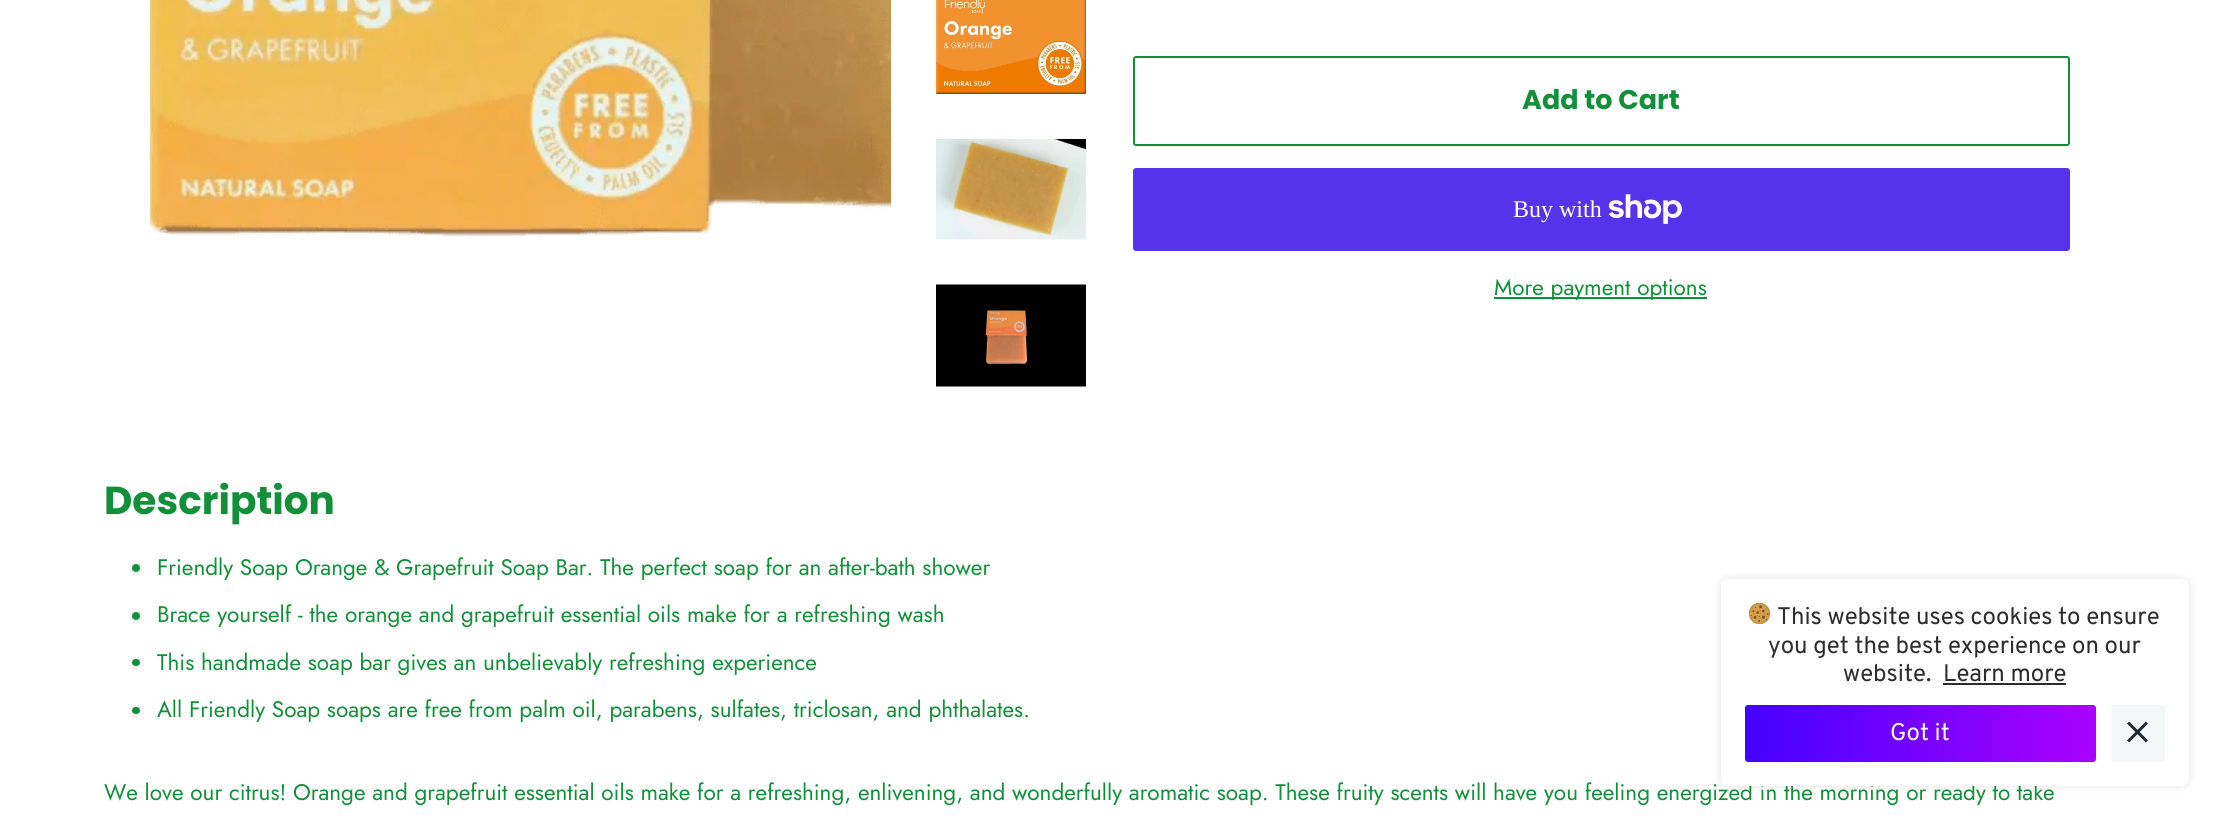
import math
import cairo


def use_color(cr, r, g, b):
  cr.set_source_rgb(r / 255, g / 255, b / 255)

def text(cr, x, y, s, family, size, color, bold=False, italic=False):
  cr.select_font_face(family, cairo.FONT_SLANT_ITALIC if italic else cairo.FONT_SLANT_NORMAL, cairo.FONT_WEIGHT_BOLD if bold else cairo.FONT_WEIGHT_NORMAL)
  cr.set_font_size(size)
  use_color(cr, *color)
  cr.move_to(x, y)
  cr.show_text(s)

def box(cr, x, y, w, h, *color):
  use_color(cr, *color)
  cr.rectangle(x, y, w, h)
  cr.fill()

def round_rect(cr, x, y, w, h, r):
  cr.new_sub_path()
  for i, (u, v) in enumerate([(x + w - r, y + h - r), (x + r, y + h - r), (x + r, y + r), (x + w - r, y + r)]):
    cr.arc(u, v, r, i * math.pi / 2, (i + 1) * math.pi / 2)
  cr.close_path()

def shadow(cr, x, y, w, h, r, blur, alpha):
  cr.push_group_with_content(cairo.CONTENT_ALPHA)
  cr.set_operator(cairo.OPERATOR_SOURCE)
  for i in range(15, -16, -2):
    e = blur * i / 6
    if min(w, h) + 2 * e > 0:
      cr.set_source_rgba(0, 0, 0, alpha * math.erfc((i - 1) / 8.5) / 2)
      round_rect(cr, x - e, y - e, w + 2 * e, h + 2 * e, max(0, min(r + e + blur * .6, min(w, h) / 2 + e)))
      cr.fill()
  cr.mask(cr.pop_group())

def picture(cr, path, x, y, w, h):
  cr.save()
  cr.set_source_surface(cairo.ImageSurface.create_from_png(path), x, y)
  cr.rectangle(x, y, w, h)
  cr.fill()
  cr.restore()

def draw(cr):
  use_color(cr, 255, 255, 255)
  cr.paint()
  picture(cr, "img_01.png", 150, 0, 741, 238)
  picture(cr, "img_02.png", 936, 0, 150, 94)
  picture(cr, "img_03.png", 936, 139, 150, 101)
  picture(cr, "img_04.png", 936, 284, 150, 103)
  round_rect(cr, 1134, 57, 935, 88, 2)
  use_color(cr, 18, 144, 57)
  cr.stroke()
  use_color(cr, 84, 51, 235)
  round_rect(cr, 1133, 168, 937, 83, 3)
  cr.fill()
  picture(cr, "img_05.png", 1608, 194, 74, 30)
  box(cr, 1494, 297, 213, 2, 18, 144, 57)
  cr.arc(136, 568, 4, 0, 2 * math.pi)
  cr.fill()
  cr.arc(136, 616, 4, 0, 2 * math.pi)
  cr.fill()
  round_rect(cr, 132, 659, 8, 7, 3.5)
  cr.fill()
  round_rect(cr, 132, 707, 8, 7, 3.5)
  cr.fill()
  text(cr, 1522, 109, "Add to Cart", "Poppins", 27, (18, 144, 57), bold=True)
  text(cr, 1513, 217, "Buy with", "Liberation Serif", 24, (255, 255, 255))
  text(cr, 1494, 295, "More payment options", "Jost", 22.5, (18, 144, 57))
  text(cr, 104, 514, "Description", "Poppins", 39, (18, 144, 57), bold=True)
  text(cr, 157, 575, "Friendly Soap Orange & Grapefruit Soap Bar. The perfect soap for an after-bath shower", "Jost", 22.5, (18, 144, 57))
  text(cr, 157, 622, "Brace yourself - the orange and grapefruit essential oils make for a refreshing wash", "Jost", 22.5, (18, 144, 57))
  text(cr, 157, 670, "This handmade soap bar gives an unbelievably refreshing experience", "Jost", 22.5, (18, 144, 57))
  text(cr, 157, 717, "All Friendly Soap soaps are free from palm oil, parabens, sulfates, triclosan, and phthalates.", "Jost", 22.5, (18, 144, 57))
  text(cr, 104, 800, "We love our citrus! Orange and grapefruit essential oils make for a refreshing, enlivening, and wonderfully aromatic soap. These fruity scents will have you feeling energized in the morning or ready to take", "Jost", 22.5, (18, 144, 57))
  use_color(cr, 255, 255, 255)
  round_rect(cr, 1721, 579, 468, 207, 8)
  cr.fill()
  cr.save()
  cr.set_fill_rule(cairo.FILL_RULE_EVEN_ODD)
  cr.new_path()
  cr.move_to(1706, 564)
  cr.line_to(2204, 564)
  cr.line_to(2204, 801)
  cr.line_to(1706, 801)
  cr.close_path()
  cr.move_to(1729, 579)
  cr.line_to(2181, 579)
  cr.curve_to(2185.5, 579, 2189, 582.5, 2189, 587)
  cr.line_to(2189, 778)
  cr.curve_to(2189, 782.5, 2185.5, 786, 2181, 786)
  cr.line_to(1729, 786)
  cr.curve_to(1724.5, 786, 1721, 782.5, 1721, 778)
  cr.line_to(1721, 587)
  cr.curve_to(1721, 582.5, 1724.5, 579, 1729, 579)
  cr.close_path()
  cr.clip()
  use_color(cr, 0, 0, 0)
  shadow(cr, 1721, 579, 468, 207, 8, 4.5, 0.12)
  cr.restore()
  picture(cr, "img_06.png", 1749, 603, 22, 21)
  text(cr, 1777, 624, "This website uses cookies to ensure", "Overpass", 24, (45, 45, 45))
  text(cr, 1768, 653, "you get the best experience on our", "Overpass", 24, (45, 45, 45))
  text(cr, 1843, 681, "website.", "Overpass", 24, (45, 45, 45))
  text(cr, 1943, 681, "Learn more", "Overpass", 24, (45, 45, 45))
  box(cr, 1943, 683, 123, 2, 45, 45, 45)
  gradient = cairo.LinearGradient(1745, 734, 2096, 734)
  gradient.add_color_stop_rgba(0, 0.267, 0.004, 1, 1)
  gradient.add_color_stop_rgba(1, 0.663, 0.004, 1, 1)
  cr.set_source(gradient)
  round_rect(cr, 1745, 705, 351, 57, 3)
  cr.fill()
  text(cr, 1890, 740, "Got it", "Overpass", 24, (255, 255, 255))
  use_color(cr, 244, 246, 248)
  round_rect(cr, 2111, 705, 54, 57, 3)
  cr.fill()
  picture(cr, "img_07.png", 2127, 721, 21, 22)


surface = cairo.ImageSurface(cairo.FORMAT_RGB24, 2218, 816)
cr = cairo.Context(surface)
options = cairo.FontOptions()
options.set_hint_metrics(cairo.HINT_METRICS_OFF)
options.set_hint_style(cairo.HINT_STYLE_NONE)
cr.set_font_options(options)
cr.set_miter_limit(4)
draw(cr)
surface.write_to_png("out.png")
